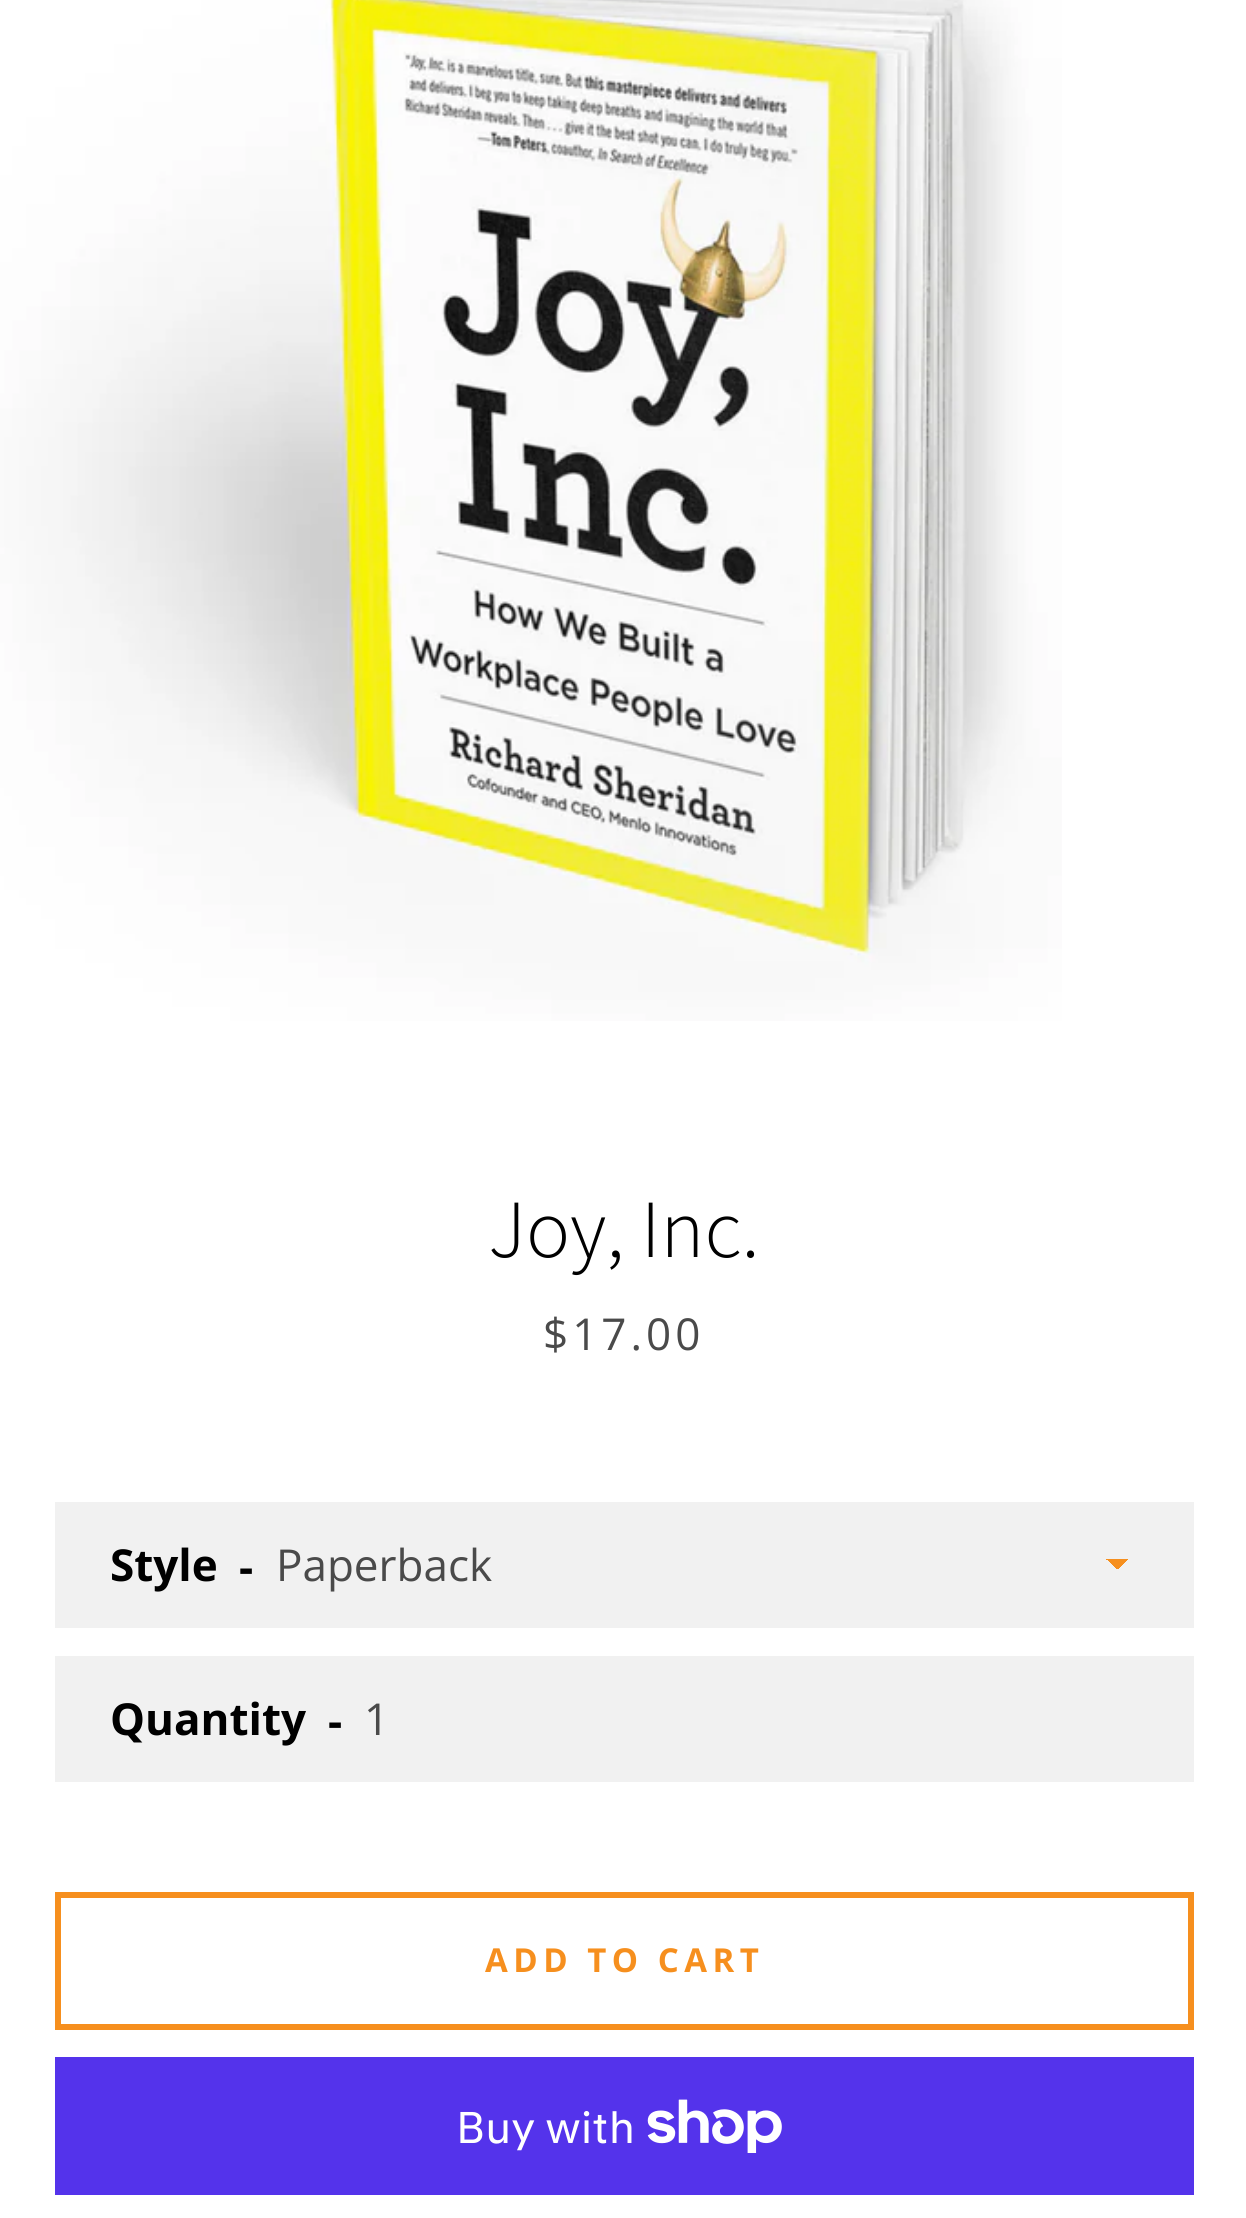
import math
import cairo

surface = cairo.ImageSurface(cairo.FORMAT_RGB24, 1246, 2218)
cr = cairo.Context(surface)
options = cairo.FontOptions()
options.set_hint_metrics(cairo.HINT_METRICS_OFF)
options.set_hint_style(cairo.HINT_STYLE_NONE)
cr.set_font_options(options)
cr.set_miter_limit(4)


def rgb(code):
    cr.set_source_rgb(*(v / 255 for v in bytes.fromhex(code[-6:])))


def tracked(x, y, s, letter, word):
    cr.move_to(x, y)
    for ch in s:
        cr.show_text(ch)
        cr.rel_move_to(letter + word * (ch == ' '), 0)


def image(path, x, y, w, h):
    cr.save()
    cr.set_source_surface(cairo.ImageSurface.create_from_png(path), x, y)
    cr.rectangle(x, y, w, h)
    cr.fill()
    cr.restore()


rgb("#ffffff")
cr.paint()
image("img/1.png", 0, 0, 1062, 1021)
rgb("#f1f1f1")
cr.rectangle(55, 1502, 1139, 126)
cr.fill()
gradient = cairo.LinearGradient(1117, 1559, 1128, 1570)
gradient.add_color_stop_rgba(0.5, 0.965, 0.561, 0.118, 1)
gradient.add_color_stop_rgba(0.5, 0.945, 0.945, 0.945, 1)
cr.set_source(gradient)
cr.rectangle(1117, 1559, 11, 10)
cr.fill()
gradient = cairo.LinearGradient(1106, 1570, 1117, 1559)
gradient.add_color_stop_rgba(0.5, 0.945, 0.945, 0.945, 1)
gradient.add_color_stop_rgba(0.5, 0.965, 0.561, 0.118, 1)
cr.set_source(gradient)
cr.rectangle(1106, 1559, 11, 10)
cr.fill()
rgb("#f1f1f1")
cr.rectangle(55, 1656, 1139, 126)
cr.fill()
cr.rectangle(58, 1895, 1133, 132)
rgb("#f68f1e")
cr.set_line_width(6)
cr.stroke()
rgb("#5433eb")
cr.rectangle(55, 2057, 1139, 138)
cr.fill()
image("img/2.png", 647, 2099, 135, 54)
cr.select_font_face("Source Sans Pro Light")
cr.set_font_size(82.5)
rgb("#000000")
cr.move_to(488, 1257)
cr.show_text("Joy, Inc.")
cr.select_font_face("Open Sans")
cr.set_font_size(44)
rgb("#4a4a4a")
tracked(543, 1350, "$17.00", 4, 0)
cr.select_font_face("Open Sans", cairo.FONT_SLANT_NORMAL, cairo.FONT_WEIGHT_BOLD)
rgb("#000000")
cr.move_to(110, 1581)
cr.show_text("Style")
cr.move_to(239, 1583)
cr.show_text("-")
cr.select_font_face("Open Sans")
rgb("#4a4a4a")
cr.move_to(276, 1581)
cr.show_text("Paperback")
cr.select_font_face("Open Sans", cairo.FONT_SLANT_NORMAL, cairo.FONT_WEIGHT_BOLD)
rgb("#000000")
cr.move_to(110, 1735)
cr.show_text("Quantity")
cr.move_to(328, 1737)
cr.show_text("-")
cr.select_font_face("Open Sans")
rgb("#4a4a4a")
cr.move_to(364, 1735)
cr.show_text("1")
cr.select_font_face("Open Sans", cairo.FONT_SLANT_NORMAL, cairo.FONT_WEIGHT_BOLD)
cr.set_font_size(33)
rgb("#f68f1e")
tracked(485, 1972, "ADD TO CART", 5.5, 0)
cr.select_font_face("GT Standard")
cr.set_font_size(44)
rgb("#ffffff")
cr.move_to(456, 2143)
cr.show_text("Buy with")
surface.write_to_png("page.png")
